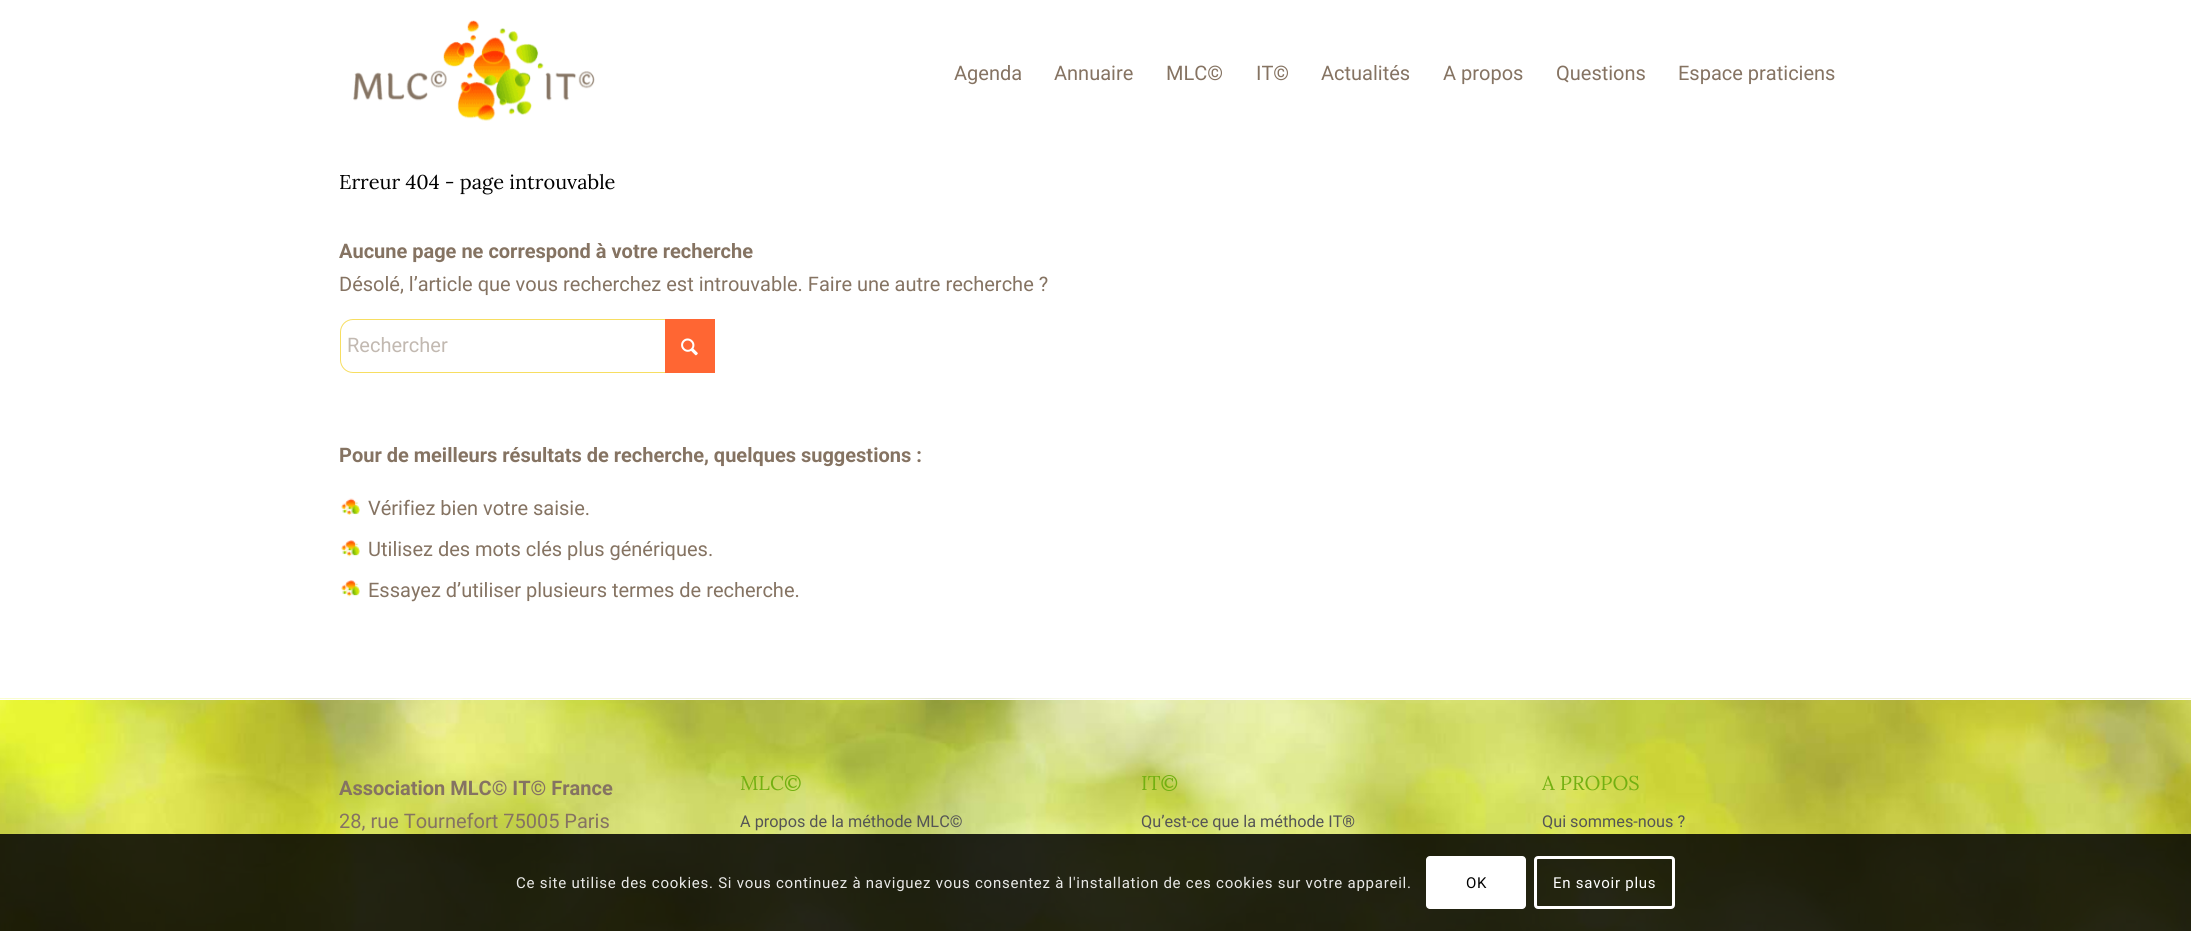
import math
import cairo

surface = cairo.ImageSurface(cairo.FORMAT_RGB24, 2191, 931)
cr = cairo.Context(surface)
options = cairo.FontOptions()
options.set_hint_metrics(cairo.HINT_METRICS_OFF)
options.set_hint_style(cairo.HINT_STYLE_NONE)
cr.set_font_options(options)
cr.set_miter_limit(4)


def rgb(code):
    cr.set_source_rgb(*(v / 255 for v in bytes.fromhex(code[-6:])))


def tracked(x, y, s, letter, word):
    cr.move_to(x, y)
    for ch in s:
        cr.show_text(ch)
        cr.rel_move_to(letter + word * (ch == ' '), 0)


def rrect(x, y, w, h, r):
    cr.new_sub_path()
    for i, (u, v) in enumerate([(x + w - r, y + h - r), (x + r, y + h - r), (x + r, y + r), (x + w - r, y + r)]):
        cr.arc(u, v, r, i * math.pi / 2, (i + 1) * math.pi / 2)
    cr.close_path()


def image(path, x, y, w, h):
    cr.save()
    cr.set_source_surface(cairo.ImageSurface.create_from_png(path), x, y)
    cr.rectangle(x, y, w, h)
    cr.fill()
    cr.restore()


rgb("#ffffff")
cr.paint()
image("img/1.png", 353, 20, 242, 101)
rrect(340.5, 319.5, 374, 53, 12.5)
rgb("#f7de62")
cr.set_line_width(1)
cr.stroke()
rgb("#ff6633")
cr.rectangle(665, 319, 50, 54)
cr.fill()
image("img/2.png", 681, 338, 17, 18)
image("img/3.png", 341, 498, 19, 17)
image("img/4.png", 341, 540, 19, 17)
image("img/5.png", 341, 580, 19, 17)
image("img/6.png", 0, 698, 2191, 233)
rgb("#ffffff")
cr.rectangle(0, 699, 2191, 1)
cr.fill()
cr.set_source_rgba(0, 0, 0, 0.85)
cr.rectangle(0, 834, 2191, 97)
cr.fill()
rgb("#ffffff")
rrect(1426, 856, 100, 53, 4)
cr.fill()
rrect(1535.5, 857.5, 138, 50, 2.5)
cr.set_line_width(3)
cr.stroke()
cr.select_font_face("Roboto")
cr.set_font_size(20)
rgb("#857362")
for x, y, s in [
    (954, 80, "Agenda"),
    (1054, 80, "Annuaire"),
    (1166, 80, "MLC©"),
    (1256, 80, "IT©"),
    (1321, 80, "Actualités"),
    (1443, 80, "A propos"),
    (1556, 80, "Questions"),
    (1678, 80, "Espace praticiens"),
]:
    cr.move_to(x, y)
    cr.show_text(s)
cr.select_font_face("Lora")
rgb("#000000")
cr.move_to(339, 189)
cr.show_text("Erreur 404 - page introuvable")
cr.select_font_face("Roboto", cairo.FONT_SLANT_NORMAL, cairo.FONT_WEIGHT_BOLD)
rgb("#857362")
cr.move_to(339, 258)
cr.show_text("Aucune page ne correspond à votre recherche")
cr.select_font_face("Roboto")
cr.move_to(339, 291)
cr.show_text("Désolé, l’article que vous recherchez est introuvable. Faire une autre recherche ?")
rgb("#c2b9b1")
cr.move_to(347, 352)
cr.show_text("Rechercher")
cr.select_font_face("Roboto", cairo.FONT_SLANT_NORMAL, cairo.FONT_WEIGHT_BOLD)
rgb("#857362")
cr.move_to(339, 462)
cr.show_text("Pour de meilleurs résultats de recherche, quelques suggestions :")
cr.select_font_face("Roboto")
for x, y, s in [
    (368, 515, "Vérifiez bien votre saisie."),
    (368, 556, "Utilisez des mots clés plus génériques."),
    (368, 597, "Essayez d’utiliser plusieurs termes de recherche."),
]:
    cr.move_to(x, y)
    cr.show_text(s)
cr.select_font_face("Roboto", cairo.FONT_SLANT_NORMAL, cairo.FONT_WEIGHT_BOLD)
cr.move_to(339, 795)
cr.show_text("Association MLC© IT© France")
cr.select_font_face("Roboto")
cr.move_to(339, 828)
cr.show_text("28, rue Tournefort 75005 Paris")
cr.select_font_face("Lora")
rgb("#73b011")
cr.move_to(740, 790)
cr.show_text("MLC©")
cr.select_font_face("Roboto")
cr.set_font_size(16.25)
rgb("#555555")
cr.move_to(740, 827)
cr.show_text("A propos de la méthode MLC©")
cr.select_font_face("Lora")
cr.set_font_size(20)
rgb("#73b011")
cr.move_to(1141, 790)
cr.show_text("IT©")
cr.select_font_face("Roboto")
cr.set_font_size(16.25)
rgb("#555555")
cr.move_to(1141, 827)
cr.show_text("Qu’est-ce que la méthode IT®")
cr.select_font_face("Lora")
cr.set_font_size(20)
rgb("#73b011")
cr.move_to(1542, 790)
cr.show_text("A PROPOS")
cr.select_font_face("Roboto")
cr.set_font_size(16.25)
rgb("#555555")
cr.move_to(1542, 827)
cr.show_text("Qui sommes-nous ?")
cr.set_font_size(15)
rgb("#e9e9e7")
tracked(516, 888, "Ce site utilise des cookies. Si vous continuez à naviguez vous consentez à l'installation de ces cookies sur votre appareil.", 0.75, 0)
rgb("#000000")
tracked(1466, 888, "OK", 0.75, 0)
rgb("#ffffff")
tracked(1553, 888, "En savoir plus", 0.75, 0)
surface.write_to_png("page.png")
